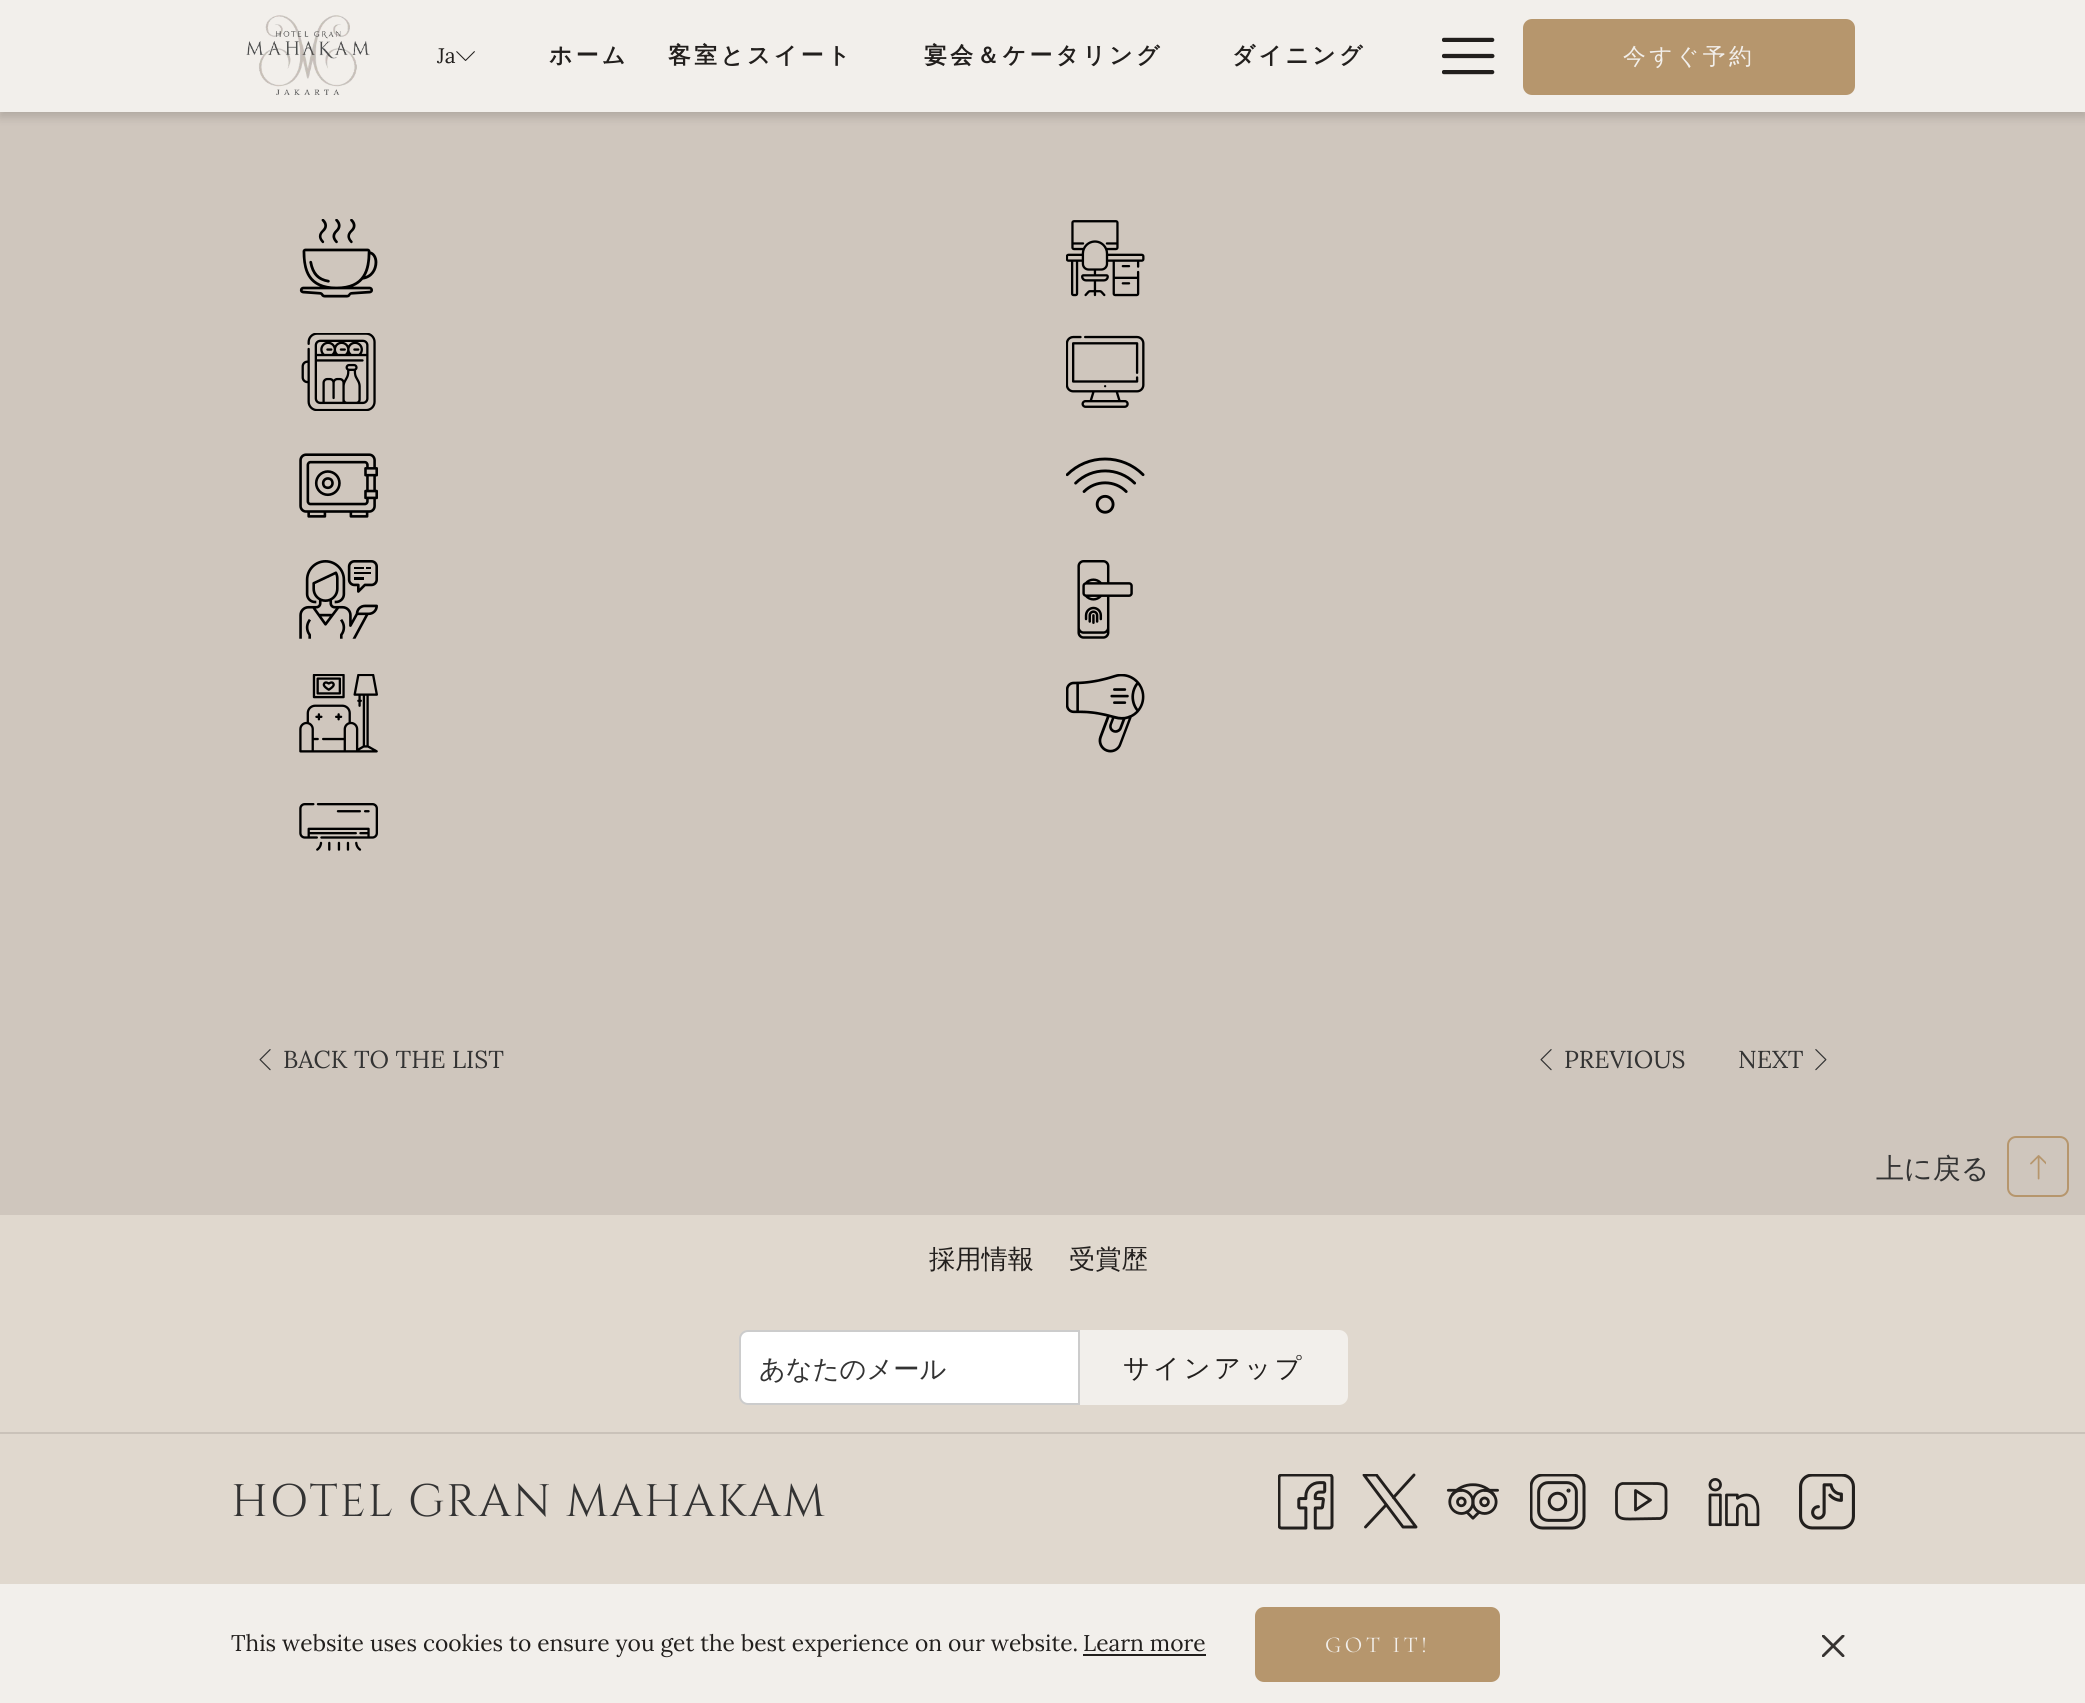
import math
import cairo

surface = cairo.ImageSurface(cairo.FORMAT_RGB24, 2085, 1703)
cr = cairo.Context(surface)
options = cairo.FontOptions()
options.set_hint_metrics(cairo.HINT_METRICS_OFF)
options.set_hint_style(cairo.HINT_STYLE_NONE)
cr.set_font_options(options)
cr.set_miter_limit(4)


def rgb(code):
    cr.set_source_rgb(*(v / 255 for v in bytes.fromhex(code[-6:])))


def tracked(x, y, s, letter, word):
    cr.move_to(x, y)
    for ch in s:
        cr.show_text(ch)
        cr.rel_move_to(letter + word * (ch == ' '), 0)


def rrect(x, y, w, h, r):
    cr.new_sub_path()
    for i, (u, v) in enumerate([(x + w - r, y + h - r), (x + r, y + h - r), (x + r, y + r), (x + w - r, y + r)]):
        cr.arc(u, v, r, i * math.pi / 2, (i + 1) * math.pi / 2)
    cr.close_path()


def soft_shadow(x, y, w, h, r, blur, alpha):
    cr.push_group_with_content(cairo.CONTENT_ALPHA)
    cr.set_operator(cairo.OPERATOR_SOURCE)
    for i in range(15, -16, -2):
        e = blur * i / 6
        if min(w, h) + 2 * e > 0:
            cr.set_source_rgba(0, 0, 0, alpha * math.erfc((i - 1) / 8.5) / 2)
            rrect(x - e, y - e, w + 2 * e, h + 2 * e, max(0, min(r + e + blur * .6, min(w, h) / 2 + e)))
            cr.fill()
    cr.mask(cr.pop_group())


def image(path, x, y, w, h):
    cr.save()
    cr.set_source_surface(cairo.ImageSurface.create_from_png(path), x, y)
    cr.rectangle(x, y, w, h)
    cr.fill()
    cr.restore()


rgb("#cfc6bd")
cr.paint()
rgb("#000000")
soft_shadow(0, 5, 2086, 112, 0, 5, 0.15)
rgb("#f2efeb")
cr.rectangle(0, 0, 2085, 112)
cr.fill()
image("img/1.png", 246, 15, 124, 80)
image("img/2.png", 456, 51, 19, 10)
image("img/3.png", 1442, 37, 53, 38)
rgb("#b6966d")
rrect(1523, 19, 332, 76, 9)
cr.fill()
image("img/4.png", 299, 219, 79, 79)
image("img/5.png", 1066, 220, 79, 77)
image("img/6.png", 301, 333, 75, 78)
image("img/7.png", 1066, 335, 79, 73)
image("img/8.png", 299, 453, 79, 65)
image("img/9.png", 1066, 457, 79, 57)
image("img/10.png", 299, 560, 79, 79)
image("img/11.png", 1077, 560, 56, 79)
image("img/12.png", 299, 674, 79, 79)
image("img/13.png", 1066, 674, 79, 79)
image("img/14.png", 299, 803, 79, 48)
image("img/15.png", 259, 1049, 12, 22)
image("img/15.png", 1540, 1049, 12, 22)
image("img/16.png", 1815, 1049, 12, 22)
rrect(2008, 1137, 60, 59, 8)
cr.stroke()
image("img/17.png", 2030, 1155, 16, 25)
rgb("#e0d8ce")
cr.rectangle(0, 1215, 2085, 369)
cr.fill()
rgb("#ffffff")
cr.new_path()
cr.move_to(748, 1331)
cr.line_to(1079, 1331)
cr.line_to(1079, 1404)
cr.line_to(748, 1404)
cr.curve_to(743.5, 1404, 740, 1400.5, 740, 1396)
cr.line_to(740, 1339)
cr.curve_to(740, 1334.5, 743.5, 1331, 748, 1331)
cr.close_path()
cr.fill_preserve()
rgb("#cccccc")
cr.stroke()
rgb("#f2efeb")
cr.new_path()
cr.move_to(1080, 1330)
cr.line_to(1339, 1330)
cr.curve_to(1344, 1330, 1348, 1334, 1348, 1339)
cr.line_to(1348, 1396)
cr.curve_to(1348, 1401, 1344, 1405, 1339, 1405)
cr.line_to(1080, 1405)
cr.close_path()
cr.fill()
rgb("#cac2b9")
cr.rectangle(0, 1432, 2085, 2)
cr.fill()
image("img/18.png", 1278, 1474, 56, 56)
cr.save()
cr.rectangle(1362, 1474, 56, 56)
cr.clip()
cr.new_path()
cr.move_to(1403, 1527)
cr.line_to(1364, 1475)
cr.line_to(1376.5, 1475)
cr.line_to(1416, 1527)
cr.close_path()
rgb("#221f1d")
cr.set_line_width(2.9)
cr.set_line_cap(cairo.LINE_CAP_ROUND)
cr.set_line_join(cairo.LINE_JOIN_ROUND)
cr.stroke()
cr.restore()
cr.new_path()
cr.move_to(1414, 1475)
cr.line_to(1393.5, 1497.5)
cr.move_to(1365.5, 1527)
cr.line_to(1386, 1505)
rgb("#221f1d")
cr.set_line_width(2.9)
cr.set_line_cap(cairo.LINE_CAP_ROUND)
cr.set_line_join(cairo.LINE_JOIN_ROUND)
cr.stroke()
image("img/19.png", 1446, 1483, 53, 37)
image("img/20.png", 1530, 1474, 56, 56)
cr.new_path()
cr.move_to(1666, 1491)
cr.curve_to(1666, 1483, 1658.5, 1483.5, 1653, 1483.5)
cr.line_to(1622.5, 1483.5)
cr.curve_to(1615.5, 1485, 1616.5, 1492, 1616.5, 1497.5)
cr.line_to(1616.5, 1511)
cr.curve_to(1616.5, 1519, 1624, 1519, 1629.5, 1519)
cr.line_to(1660, 1518.5)
cr.curve_to(1667, 1517, 1666, 1510, 1666, 1504.5)
cr.close_path()
cr.move_to(1635.5, 1510)
cr.line_to(1635.5, 1490.5)
cr.line_to(1650.5, 1500)
cr.close_path()
cr.set_line_width(2.8)
cr.stroke()
image("img/21.png", 1708, 1478, 52, 49)
image("img/22.png", 1799, 1474, 56, 56)
rgb("#f2efeb")
cr.rectangle(0, 1584, 2085, 119)
cr.fill()
rgb("#221f1d")
cr.rectangle(1083, 1654, 123, 2)
cr.fill()
rgb("#b6966d")
rrect(1255, 1607, 245, 75, 9)
cr.fill()
image("img/23.png", 1822, 1635, 23, 22)
cr.select_font_face("Lora")
cr.set_font_size(21)
rgb("#221f1d")
cr.move_to(437, 63)
cr.show_text("Ja")
cr.select_font_face("WenQuanYi Zen Hei", cairo.FONT_SLANT_NORMAL, cairo.FONT_WEIGHT_BOLD)
cr.set_font_size(22.75)
for x, y, s in [
    (549, 63, "ホーム"),
    (668, 63, "客室とスイート"),
    (924, 63, "宴会＆ケータリング"),
    (1232, 63, "ダイニング"),
]:
    tracked(x, y, s, 3.5, 0)
cr.select_font_face("WenQuanYi Zen Hei Medium")
rgb("#f2efeb")
tracked(1623, 64, "今すぐ予約", 3.5, 0)
cr.select_font_face("Lora")
cr.set_font_size(24.5)
rgb("#333333")
for x, y, s in [
    (283, 1068, "BACK TO THE LIST"),
    (1564, 1068, "PREVIOUS"),
    (1738, 1068, "NEXT"),
]:
    cr.move_to(x, y)
    cr.show_text(s)
cr.select_font_face("WenQuanYi Zen Hei Medium")
cr.set_font_size(28)
cr.move_to(1876, 1178)
cr.show_text("上に戻る")
cr.set_font_size(26.25)
rgb("#221f1d")
cr.move_to(929, 1268)
cr.show_text("採用情報")
cr.move_to(1069, 1268)
cr.show_text("受賞歴")
rgb("#333333")
cr.move_to(759, 1378)
cr.show_text("あなたのメール")
rgb("#221f1d")
tracked(1123, 1377, "サインアップ", 3.5, 0)
cr.select_font_face("Cinzel")
cr.set_font_size(45.5)
rgb("#333333")
tracked(231, 1516, "HOTEL GRAN MAHAKAM", 1.75, 0)
cr.select_font_face("Lora")
cr.set_font_size(22.75)
rgb("#221f1d")
cr.move_to(231, 1651)
cr.show_text("This website uses cookies to ensure you get the best experience on our website.")
cr.move_to(1083, 1651)
cr.show_text("Learn more")
cr.select_font_face("Cormorant Garamond")
rgb("#f2efeb")
tracked(1325, 1652, "GOT IT!", 3.5, 0)
surface.write_to_png("page.png")
